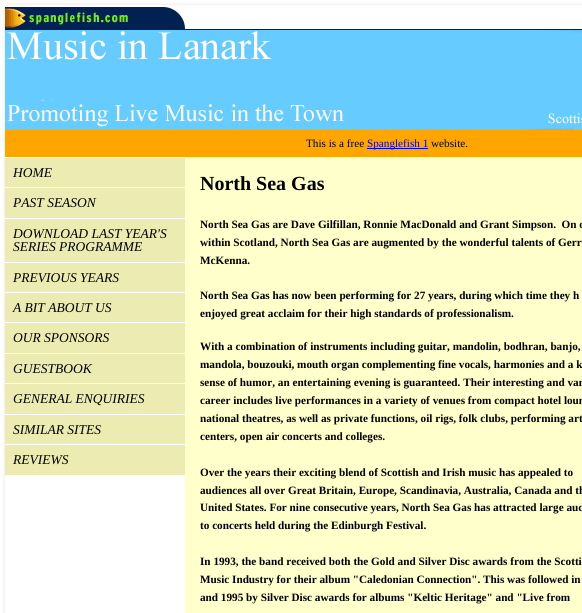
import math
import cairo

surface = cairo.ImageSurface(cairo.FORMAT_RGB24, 582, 613)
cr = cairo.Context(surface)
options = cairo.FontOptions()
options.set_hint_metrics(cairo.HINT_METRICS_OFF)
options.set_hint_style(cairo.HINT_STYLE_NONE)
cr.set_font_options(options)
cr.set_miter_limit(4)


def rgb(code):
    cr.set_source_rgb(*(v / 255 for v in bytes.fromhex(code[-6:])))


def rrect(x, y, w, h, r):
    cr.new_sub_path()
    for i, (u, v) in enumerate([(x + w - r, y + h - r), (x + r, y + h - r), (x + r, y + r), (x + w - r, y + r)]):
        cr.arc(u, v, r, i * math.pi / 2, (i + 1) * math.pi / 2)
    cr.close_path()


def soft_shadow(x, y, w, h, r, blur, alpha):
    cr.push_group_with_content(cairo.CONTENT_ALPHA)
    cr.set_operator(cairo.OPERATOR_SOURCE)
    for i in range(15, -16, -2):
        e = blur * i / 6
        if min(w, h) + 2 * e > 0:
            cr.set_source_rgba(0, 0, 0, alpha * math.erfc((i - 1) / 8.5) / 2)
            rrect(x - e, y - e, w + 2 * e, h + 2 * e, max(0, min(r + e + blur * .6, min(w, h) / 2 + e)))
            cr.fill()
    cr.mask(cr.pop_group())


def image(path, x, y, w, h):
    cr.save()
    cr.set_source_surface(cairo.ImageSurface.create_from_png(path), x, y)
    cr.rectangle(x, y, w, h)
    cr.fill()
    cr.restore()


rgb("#ffffff")
cr.paint()
cr.save()
cr.set_fill_rule(cairo.FILL_RULE_EVEN_ODD)
cr.new_path()
cr.move_to(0, 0)
cr.line_to(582, 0)
cr.line_to(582, 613)
cr.line_to(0, 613)
cr.close_path()
cr.move_to(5, 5)
cr.line_to(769, 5)
cr.line_to(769, 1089)
cr.line_to(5, 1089)
cr.close_path()
cr.clip()
rgb("#666666")
soft_shadow(8, 8, 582, 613, 0, 2.5, 1)
cr.restore()
image("img/1.png", 5, 7, 577, 23)
image("img/2.png", 5, 30, 577, 100)
for x, y, w, h, color in [
    (5, 130, 577, 27, "#ffa500"),
    (367, 148, 61, 1, "#0000ee"),
    (5, 158, 180, 29, "#ecebb1"),
    (5, 188, 180, 30, "#ecebb1"),
    (5, 219, 180, 43, "#ecebb1"),
    (5, 263, 180, 29, "#ecebb1"),
    (5, 293, 180, 29, "#ecebb1"),
    (5, 323, 180, 30, "#ecebb1"),
    (5, 354, 180, 29, "#ecebb1"),
    (5, 384, 180, 30, "#ecebb1"),
    (5, 415, 180, 29, "#ecebb1"),
    (5, 445, 180, 30, "#ecebb1"),
    (185, 157, 397, 456, "#ffffcc"),
]:
    rgb(color)
    cr.rectangle(x, y, w, h)
    cr.fill()
cr.select_font_face("Liberation Serif")
cr.set_font_size(11.2)
rgb("#000000")
cr.move_to(306, 147)
cr.show_text("This is a free")
rgb("#0000ee")
cr.move_to(367, 147)
cr.show_text("Spanglefish 1")
rgb("#000000")
cr.move_to(431, 147)
cr.show_text("website.")
cr.select_font_face("Liberation Serif", cairo.FONT_SLANT_ITALIC)
cr.set_font_size(13.5)
for x, y, s in [
    (13, 177, "HOME"),
    (13, 207, "PAST SEASON"),
    (13, 238, "DOWNLOAD LAST YEAR'S"),
    (13, 251, "SERIES PROGRAMME"),
    (13, 282, "PREVIOUS YEARS"),
    (13, 312, "A BIT ABOUT US"),
    (13, 342, "OUR SPONSORS"),
    (13, 373, "GUESTBOOK"),
    (13, 403, "GENERAL ENQUIRIES"),
    (13, 434, "SIMILAR SITES"),
    (13, 464, "REVIEWS"),
]:
    cr.move_to(x, y)
    cr.show_text(s)
cr.select_font_face("Liberation Serif", cairo.FONT_SLANT_NORMAL, cairo.FONT_WEIGHT_BOLD)
cr.set_font_size(20)
cr.move_to(200, 190)
cr.show_text("North Sea Gas")
cr.set_font_size(11.2)
for x, y, s in [
    (200, 228, "North Sea Gas are Dave Gilfillan, Ronnie MacDonald and Grant Simpson.  On o"),
    (200, 246, "within Scotland, North Sea Gas are augmented by the wonderful talents of Gerr"),
    (200, 264, "McKenna."),
    (200, 299, "North Sea Gas has now been performing for 27 years, during which time they h"),
    (200, 317, "enjoyed great acclaim for their high standards of professionalism."),
    (200, 350, "With a combination of instruments including guitar, mandolin, bodhran, banjo,"),
    (200, 368, "mandola, bouzouki, mouth organ complementing fine vocals, harmonies and a k"),
    (200, 386, "sense of humor, an entertaining evening is guaranteed. Their interesting and var"),
    (200, 404, "career includes live performances in a variety of venues from compact hotel loun"),
    (200, 422, "national theatres, as well as private functions, oil rigs, folk clubs, performing art"),
    (200, 440, "centers, open air concerts and colleges."),
    (200, 476, "Over the years their exciting blend of Scottish and Irish music has appealed to"),
    (200, 494, "audiences all over Great Britain, Europe, Scandinavia, Australia, Canada and th"),
    (200, 511, "United States. For nine consecutive years, North Sea Gas has attracted large aud"),
    (200, 529, "to concerts held during the Edinburgh Festival."),
    (200, 565, "In 1993, the band received both the Gold and Silver Disc awards from the Scotti"),
    (200, 583, "Music Industry for their album \"Caledonian Connection\". This was followed in"),
    (200, 601, "and 1995 by Silver Disc awards for albums \"Keltic Heritage\" and \"Live from"),
]:
    cr.move_to(x, y)
    cr.show_text(s)
surface.write_to_png("page.png")
